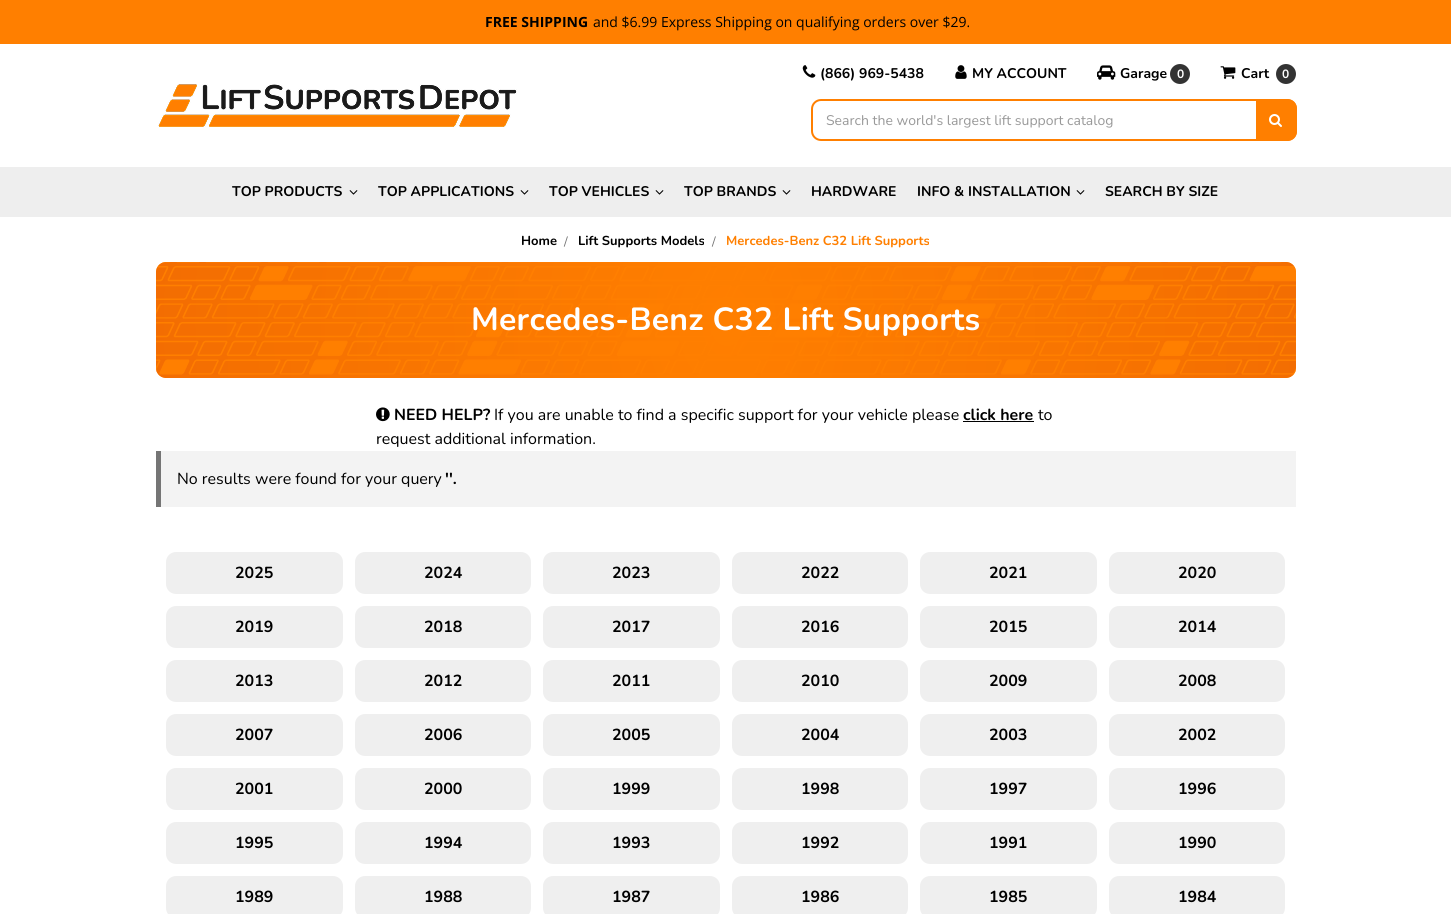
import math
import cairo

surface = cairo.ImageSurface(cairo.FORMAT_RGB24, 1451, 914)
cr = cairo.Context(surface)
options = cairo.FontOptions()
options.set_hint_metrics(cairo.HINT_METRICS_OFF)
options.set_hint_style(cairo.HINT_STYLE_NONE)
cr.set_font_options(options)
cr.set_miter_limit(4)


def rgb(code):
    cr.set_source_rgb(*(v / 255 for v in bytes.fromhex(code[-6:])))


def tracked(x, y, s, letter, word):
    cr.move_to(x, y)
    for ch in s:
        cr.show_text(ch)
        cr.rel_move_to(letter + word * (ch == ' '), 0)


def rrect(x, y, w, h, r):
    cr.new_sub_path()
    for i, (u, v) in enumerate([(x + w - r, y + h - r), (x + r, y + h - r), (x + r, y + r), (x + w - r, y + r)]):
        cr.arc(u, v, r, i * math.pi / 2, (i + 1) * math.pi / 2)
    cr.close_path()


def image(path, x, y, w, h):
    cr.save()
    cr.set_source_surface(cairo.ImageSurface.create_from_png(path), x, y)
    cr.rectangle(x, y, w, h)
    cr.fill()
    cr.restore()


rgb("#ffffff")
cr.paint()
rgb("#ff7f00")
cr.rectangle(0, 0, 1451, 44)
cr.fill()
image("img/1.png", 158, 84, 359, 43)
image("img/2.png", 802, 65, 14, 13)
image("img/3.png", 955, 65, 12, 14)
image("img/4.png", 1097, 65, 19, 15)
rgb("#333333")
cr.arc(1180, 74, 10, 0, 2 * math.pi)
cr.fill()
image("img/5.png", 1220, 66, 16, 13)
cr.arc(1286, 74, 10, 0, 2 * math.pi)
cr.fill()
rrect(812, 100, 482, 40, 9)
rgb("#ff7f00")
cr.stroke()
cr.new_path()
cr.move_to(1256, 99)
cr.line_to(1287, 99)
cr.curve_to(1292.5, 99, 1297, 103.5, 1297, 109)
cr.line_to(1297, 131)
cr.curve_to(1297, 136.5, 1292.5, 141, 1287, 141)
cr.line_to(1256, 141)
cr.close_path()
cr.fill()
cr.set_fill_rule(cairo.FILL_RULE_EVEN_ODD)
cr.new_path()
cr.move_to(1256, 99)
cr.line_to(1287, 99)
cr.curve_to(1293, 99, 1297, 103, 1297, 109)
cr.line_to(1297, 131)
cr.curve_to(1297, 137, 1293, 141, 1287, 141)
cr.line_to(1256, 141)
cr.close_path()
cr.move_to(1256, 101)
cr.line_to(1287, 101)
cr.curve_to(1291, 101, 1295, 105, 1295, 109)
cr.line_to(1295, 131)
cr.curve_to(1295, 135, 1291, 139, 1287, 139)
cr.line_to(1256, 139)
cr.close_path()
cr.fill()
image("img/6.png", 1269, 114, 13, 13)
rgb("#eeeeee")
cr.rectangle(0, 167, 1451, 50)
cr.fill()
image("img/7.png", 349, 190, 9, 5)
image("img/7.png", 520, 190, 9, 5)
image("img/7.png", 655, 190, 9, 5)
image("img/7.png", 782, 190, 9, 5)
image("img/7.png", 1076, 190, 9, 5)
rgb("#ff7f00")
rrect(156, 262, 1140, 116, 10)
cr.fill()
image("img/8.png", 156, 262, 1140, 116)
image("img/9.png", 376, 407, 14, 15)
for x, y, w, h, color in [
    (963, 421, 71, 1, "#000000"),
    (161, 451, 1135, 56, "#f3f3f3"),
    (156, 451, 5, 56, "#757575"),
]:
    rgb(color)
    cr.rectangle(x, y, w, h)
    cr.fill()
rgb("#efefef")
rrect(166, 552, 177, 42, 10)
cr.fill()
rrect(355, 552, 176, 42, 10)
cr.fill()
rrect(543, 552, 177, 42, 10)
cr.fill()
rrect(732, 552, 176, 42, 10)
cr.fill()
rrect(920, 552, 177, 42, 10)
cr.fill()
rrect(1109, 552, 176, 42, 10)
cr.fill()
rrect(166, 606, 177, 42, 10)
cr.fill()
rrect(355, 606, 176, 42, 10)
cr.fill()
rrect(543, 606, 177, 42, 10)
cr.fill()
rrect(732, 606, 176, 42, 10)
cr.fill()
rrect(920, 606, 177, 42, 10)
cr.fill()
rrect(1109, 606, 176, 42, 10)
cr.fill()
rrect(166, 660, 177, 42, 10)
cr.fill()
rrect(355, 660, 176, 42, 10)
cr.fill()
rrect(543, 660, 177, 42, 10)
cr.fill()
rrect(732, 660, 176, 42, 10)
cr.fill()
rrect(920, 660, 177, 42, 10)
cr.fill()
rrect(1109, 660, 176, 42, 10)
cr.fill()
rrect(166, 714, 177, 42, 10)
cr.fill()
rrect(355, 714, 176, 42, 10)
cr.fill()
rrect(543, 714, 177, 42, 10)
cr.fill()
rrect(732, 714, 176, 42, 10)
cr.fill()
rrect(920, 714, 177, 42, 10)
cr.fill()
rrect(1109, 714, 176, 42, 10)
cr.fill()
rrect(166, 768, 177, 42, 10)
cr.fill()
rrect(355, 768, 176, 42, 10)
cr.fill()
rrect(543, 768, 177, 42, 10)
cr.fill()
rrect(732, 768, 176, 42, 10)
cr.fill()
rrect(920, 768, 177, 42, 10)
cr.fill()
rrect(1109, 768, 176, 42, 10)
cr.fill()
rrect(166, 822, 177, 42, 10)
cr.fill()
rrect(355, 822, 176, 42, 10)
cr.fill()
rrect(543, 822, 177, 42, 10)
cr.fill()
rrect(732, 822, 176, 42, 10)
cr.fill()
rrect(920, 822, 177, 42, 10)
cr.fill()
rrect(1109, 822, 176, 42, 10)
cr.fill()
rrect(166, 876, 177, 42, 10)
cr.fill()
rrect(355, 876, 176, 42, 10)
cr.fill()
rrect(543, 876, 177, 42, 10)
cr.fill()
rrect(732, 876, 176, 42, 10)
cr.fill()
rrect(920, 876, 177, 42, 10)
cr.fill()
rrect(1109, 876, 176, 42, 10)
cr.fill()
cr.select_font_face("Open Sans", cairo.FONT_SLANT_NORMAL, cairo.FONT_WEIGHT_BOLD)
cr.set_font_size(14)
rgb("#000000")
cr.move_to(485, 27)
cr.show_text("FREE SHIPPING")
cr.select_font_face("Open Sans")
cr.move_to(593, 27)
cr.show_text("and $6.99 Express Shipping on qualifying orders over $29.")
cr.select_font_face("Nunito ExtraLight")
for x, y, s in [
    (820, 78, "(866) 969-5438"),
    (972, 78, "MY ACCOUNT"),
    (1120, 78, "Garage"),
]:
    cr.move_to(x, y)
    cr.show_text(s)
cr.set_font_size(12)
rgb("#ffffff")
cr.move_to(1177, 78)
cr.show_text("0")
cr.set_font_size(14)
rgb("#000000")
cr.move_to(1241, 78)
cr.show_text("Cart")
cr.set_font_size(12)
rgb("#ffffff")
cr.move_to(1282, 78)
cr.show_text("0")
cr.select_font_face("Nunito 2 ExtraLight")
cr.set_font_size(14)
rgb("#999999")
cr.move_to(826, 125)
cr.show_text("Search the world's largest lift support catalog")
cr.select_font_face("Nunito ExtraLight")
rgb("#000000")
for x, y, s in [
    (232, 196, "TOP PRODUCTS"),
    (378, 196, "TOP APPLICATIONS"),
    (549, 196, "TOP VEHICLES"),
    (684, 196, "TOP BRANDS"),
    (811, 196, "HARDWARE"),
    (917, 196, "INFO & INSTALLATION"),
    (1105, 196, "SEARCH BY SIZE"),
]:
    cr.move_to(x, y)
    cr.show_text(s)
cr.set_font_size(13)
cr.move_to(521, 245)
cr.show_text("Home")
cr.select_font_face("Nunito 2 ExtraLight")
rgb("#757575")
cr.move_to(564, 246)
cr.show_text("/")
cr.select_font_face("Nunito ExtraLight")
rgb("#000000")
cr.move_to(578, 245)
cr.show_text("Lift Supports Models")
cr.select_font_face("Nunito 2 ExtraLight")
rgb("#757575")
cr.move_to(712, 246)
cr.show_text("/")
cr.select_font_face("Nunito ExtraLight")
rgb("#ff7f00")
cr.move_to(726, 245)
cr.show_text("Mercedes-Benz C32 Lift Supports")
cr.set_font_size(32)
rgb("#ffffff")
tracked(471, 330, "Mercedes-Benz C32 Lift Supports", 0.25, 0)
cr.set_font_size(16)
rgb("#000000")
cr.move_to(394, 420)
cr.show_text("NEED HELP?")
cr.select_font_face("Nunito 2 ExtraLight")
cr.move_to(494, 420)
cr.show_text("If you are unable to find a specific support for your vehicle please")
cr.select_font_face("Nunito ExtraLight")
cr.move_to(963, 420)
cr.show_text("click here")
cr.select_font_face("Nunito 2 ExtraLight")
for x, y, s in [
    (1038, 420, "to"),
    (376, 444, "request additional information."),
    (177, 484, "No results were found for your query"),
]:
    cr.move_to(x, y)
    cr.show_text(s)
cr.select_font_face("Nunito ExtraLight")
for x, y, s in [
    (445, 484, "''."),
    (235, 578, "2025"),
    (424, 578, "2024"),
    (612, 578, "2023"),
    (801, 578, "2022"),
    (989, 578, "2021"),
    (1178, 578, "2020"),
    (235, 632, "2019"),
    (424, 632, "2018"),
    (612, 632, "2017"),
    (801, 632, "2016"),
    (989, 632, "2015"),
    (1178, 632, "2014"),
    (235, 686, "2013"),
    (424, 686, "2012"),
    (612, 686, "2011"),
    (801, 686, "2010"),
    (989, 686, "2009"),
    (1178, 686, "2008"),
    (235, 740, "2007"),
    (424, 740, "2006"),
    (612, 740, "2005"),
    (801, 740, "2004"),
    (989, 740, "2003"),
    (1178, 740, "2002"),
    (235, 794, "2001"),
    (424, 794, "2000"),
    (612, 794, "1999"),
    (801, 794, "1998"),
    (989, 794, "1997"),
    (1178, 794, "1996"),
    (235, 848, "1995"),
    (424, 848, "1994"),
    (612, 848, "1993"),
    (801, 848, "1992"),
    (989, 848, "1991"),
    (1178, 848, "1990"),
    (235, 902, "1989"),
    (424, 902, "1988"),
    (612, 902, "1987"),
    (801, 902, "1986"),
    (989, 902, "1985"),
    (1178, 902, "1984"),
]:
    cr.move_to(x, y)
    cr.show_text(s)
surface.write_to_png("page.png")
